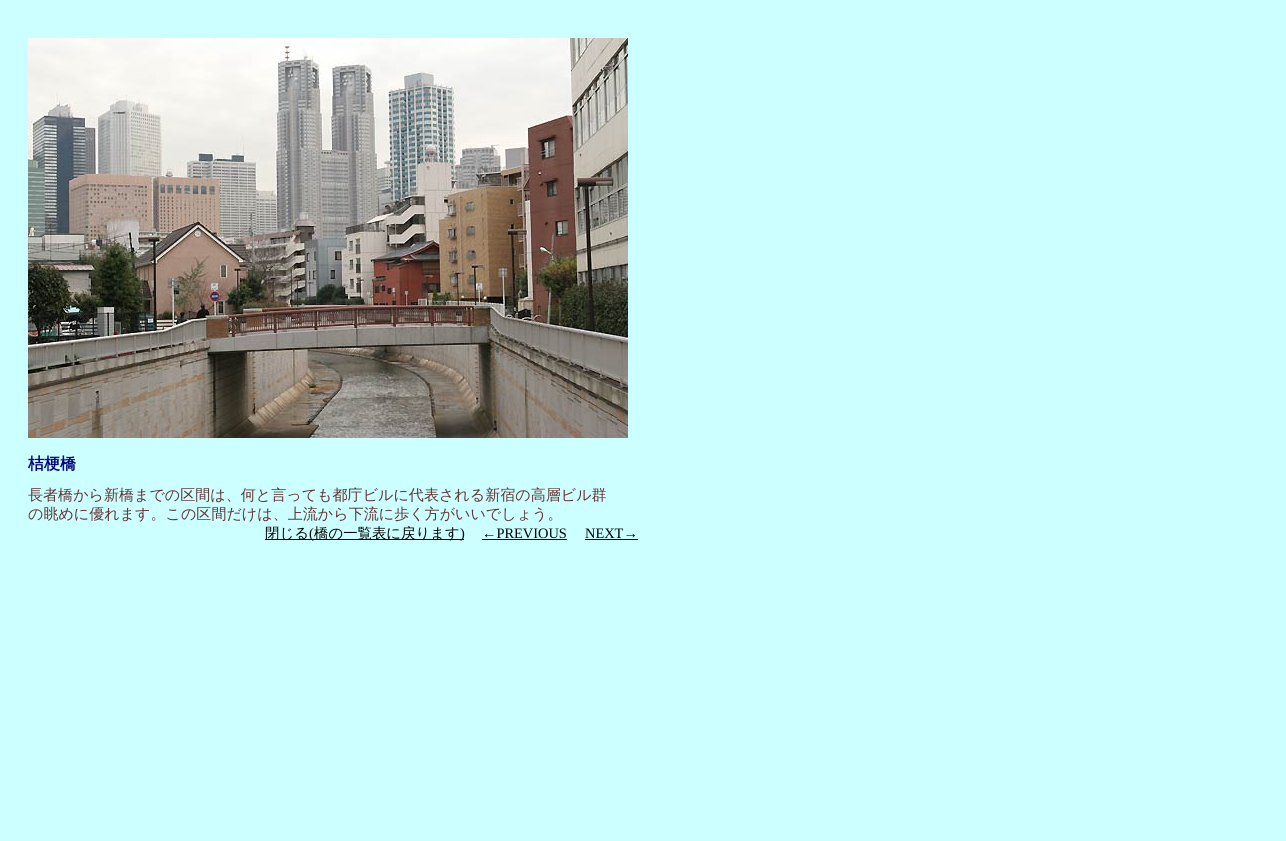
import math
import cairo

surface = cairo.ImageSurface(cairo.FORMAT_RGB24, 1286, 841)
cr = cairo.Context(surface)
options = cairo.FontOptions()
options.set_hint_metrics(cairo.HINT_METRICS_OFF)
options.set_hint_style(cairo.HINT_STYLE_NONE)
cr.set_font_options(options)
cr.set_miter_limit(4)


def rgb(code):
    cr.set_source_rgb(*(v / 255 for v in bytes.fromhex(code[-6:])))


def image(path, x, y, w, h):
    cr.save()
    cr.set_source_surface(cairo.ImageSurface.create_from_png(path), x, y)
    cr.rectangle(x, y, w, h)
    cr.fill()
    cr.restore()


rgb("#ccffff")
cr.paint()
image("img/1.png", 28, 38, 600, 400)
for x, y, w, h, color in [
    (265, 539, 199, 1, "#000000"),
    (482, 539, 85, 1, "#000000"),
    (585, 539, 53, 1, "#000000"),
]:
    rgb(color)
    cr.rectangle(x, y, w, h)
    cr.fill()
cr.select_font_face("WenQuanYi Zen Hei", cairo.FONT_SLANT_NORMAL, cairo.FONT_WEIGHT_BOLD)
cr.set_font_size(16)
rgb("#000080")
cr.move_to(28, 469)
cr.show_text("桔梗橋")
cr.select_font_face("WenQuanYi Zen Hei Medium")
cr.set_font_size(15.05)
rgb("#663333")
cr.move_to(28, 500)
cr.show_text("長者橋から新橋までの区間は、何と言っても都庁ビルに代表される新宿の高層ビル群")
cr.move_to(28, 519)
cr.show_text("の眺めに優れます。この区間だけは、上流から下流に歩く方がいいでしょう。")
cr.set_font_size(14.4)
rgb("#000000")
cr.move_to(265, 538)
cr.show_text("閉じる")
cr.select_font_face("Liberation Serif")
cr.move_to(309, 538)
cr.show_text("(")
cr.select_font_face("WenQuanYi Zen Hei Medium")
cr.move_to(314, 538)
cr.show_text("橋の一覧表に戻ります")
cr.select_font_face("Liberation Serif")
for x, y, s in [
    (460, 538, ")"),
    (482, 538, "←PREVIOUS"),
    (585, 538, "NEXT→"),
]:
    cr.move_to(x, y)
    cr.show_text(s)
surface.write_to_png("page.png")
